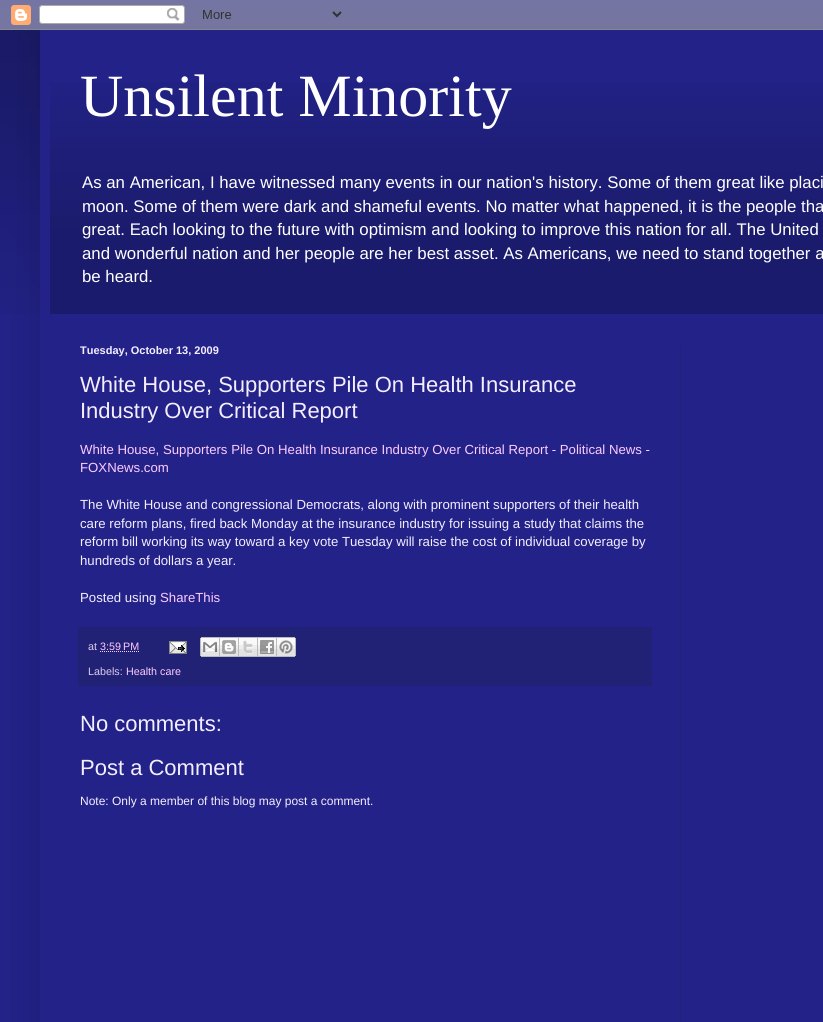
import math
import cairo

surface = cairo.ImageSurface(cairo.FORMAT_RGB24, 823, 1022)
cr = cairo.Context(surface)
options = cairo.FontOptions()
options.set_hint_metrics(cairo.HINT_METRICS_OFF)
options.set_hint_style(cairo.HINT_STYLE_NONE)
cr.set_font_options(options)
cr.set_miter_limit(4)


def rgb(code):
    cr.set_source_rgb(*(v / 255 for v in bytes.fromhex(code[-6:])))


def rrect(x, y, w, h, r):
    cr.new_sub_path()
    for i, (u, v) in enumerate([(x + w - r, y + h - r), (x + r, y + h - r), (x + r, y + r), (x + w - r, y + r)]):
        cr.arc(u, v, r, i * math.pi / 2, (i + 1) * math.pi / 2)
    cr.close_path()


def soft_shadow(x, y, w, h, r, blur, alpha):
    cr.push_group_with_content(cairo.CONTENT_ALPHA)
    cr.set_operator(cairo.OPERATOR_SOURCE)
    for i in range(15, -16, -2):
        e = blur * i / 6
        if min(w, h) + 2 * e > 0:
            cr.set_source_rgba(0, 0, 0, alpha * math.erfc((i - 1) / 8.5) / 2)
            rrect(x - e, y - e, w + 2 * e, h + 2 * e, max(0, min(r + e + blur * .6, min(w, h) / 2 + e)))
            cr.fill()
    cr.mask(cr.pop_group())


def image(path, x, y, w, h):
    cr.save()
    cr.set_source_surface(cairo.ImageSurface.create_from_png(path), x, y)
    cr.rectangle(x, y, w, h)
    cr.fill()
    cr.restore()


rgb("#222288")
cr.paint()
image("img/1.png", 0, 0, 823, 314)
rgb("#000000")
soft_shadow(40, 30, 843, 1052, 0, 20, 0.15)
image("img/2.png", 0, 0, 823, 30)
rgb("#222288")
cr.rectangle(40, 30, 783, 992)
cr.fill()
image("img/3.png", 50, 82, 773, 232)
rgb("#212176")
cr.rectangle(78, 627, 574, 59)
cr.fill()
cr.new_path()
cr.move_to(100, 651.5)
cr.line_to(139.5, 651.5)
rgb("#ffccff")
cr.set_line_width(1)
cr.set_dash([1, 1])
cr.stroke()
image("img/4.png", 169, 641, 18, 13)
image("img/5.png", 200, 637, 20, 20)
image("img/6.png", 220, 637, 19, 20)
image("img/7.png", 239, 637, 19, 20)
image("img/8.png", 258, 637, 19, 20)
image("img/9.png", 277, 637, 19, 20)
rgb("#212176")
cr.rectangle(680, 344, 1, 678)
cr.fill()
cr.select_font_face("Liberation Serif")
cr.set_font_size(60)
rgb("#ffffff")
cr.move_to(80, 116)
cr.show_text("Unsilent Minority")
cr.select_font_face("Liberation Sans")
cr.set_font_size(16.8)
for x, y, s in [
    (82, 188, "As an American, I have witnessed many events in our nation's history. Some of them great like placi"),
    (82, 212, "moon. Some of them were dark and shameful events. No matter what happened, it is the people tha"),
    (82, 235, "great. Each looking to the future with optimism and looking to improve this nation for all. The United"),
    (82, 259, "and wonderful nation and her people are her best asset. As Americans, we need to stand together a"),
    (82, 282, "be heard."),
]:
    cr.move_to(x, y)
    cr.show_text(s)
cr.select_font_face("Liberation Sans", cairo.FONT_SLANT_NORMAL, cairo.FONT_WEIGHT_BOLD)
cr.set_font_size(11)
rgb("#f5eeff")
cr.move_to(80, 354)
cr.show_text("Tuesday, October 13, 2009")
cr.select_font_face("Liberation Sans")
cr.set_font_size(22)
cr.move_to(80, 392)
cr.show_text("White House, Supporters Pile On Health Insurance")
cr.move_to(80, 418)
cr.show_text("Industry Over Critical Report")
cr.set_font_size(13.2)
rgb("#ffccff")
cr.move_to(80, 454)
cr.show_text("White House, Supporters Pile On Health Insurance Industry Over Critical Report - Political News -")
cr.move_to(80, 472)
cr.show_text("FOXNews.com")
rgb("#f5eeff")
for x, y, s in [
    (80, 509, "The White House and congressional Democrats, along with prominent supporters of their health"),
    (80, 528, "care reform plans, fired back Monday at the insurance industry for issuing a study that claims the"),
    (80, 546, "reform bill working its way toward a key vote Tuesday will raise the cost of individual coverage by"),
    (80, 565, "hundreds of dollars a year."),
    (80, 602, "Posted using"),
]:
    cr.move_to(x, y)
    cr.show_text(s)
rgb("#ffccff")
cr.move_to(160, 602)
cr.show_text("ShareThis")
cr.set_font_size(10.75)
rgb("#ddccee")
cr.move_to(88, 650)
cr.show_text("at")
rgb("#ffccff")
cr.move_to(100, 650)
cr.show_text("3:59 PM")
rgb("#ddccee")
cr.move_to(88, 675)
cr.show_text("Labels:")
rgb("#ffccff")
cr.move_to(126, 675)
cr.show_text("Health care")
cr.set_font_size(22)
rgb("#f5eeff")
cr.move_to(80, 731)
cr.show_text("No comments:")
cr.move_to(80, 775)
cr.show_text("Post a Comment")
cr.set_font_size(12)
cr.move_to(80, 805)
cr.show_text("Note: Only a member of this blog may post a comment.")
surface.write_to_png("page.png")
